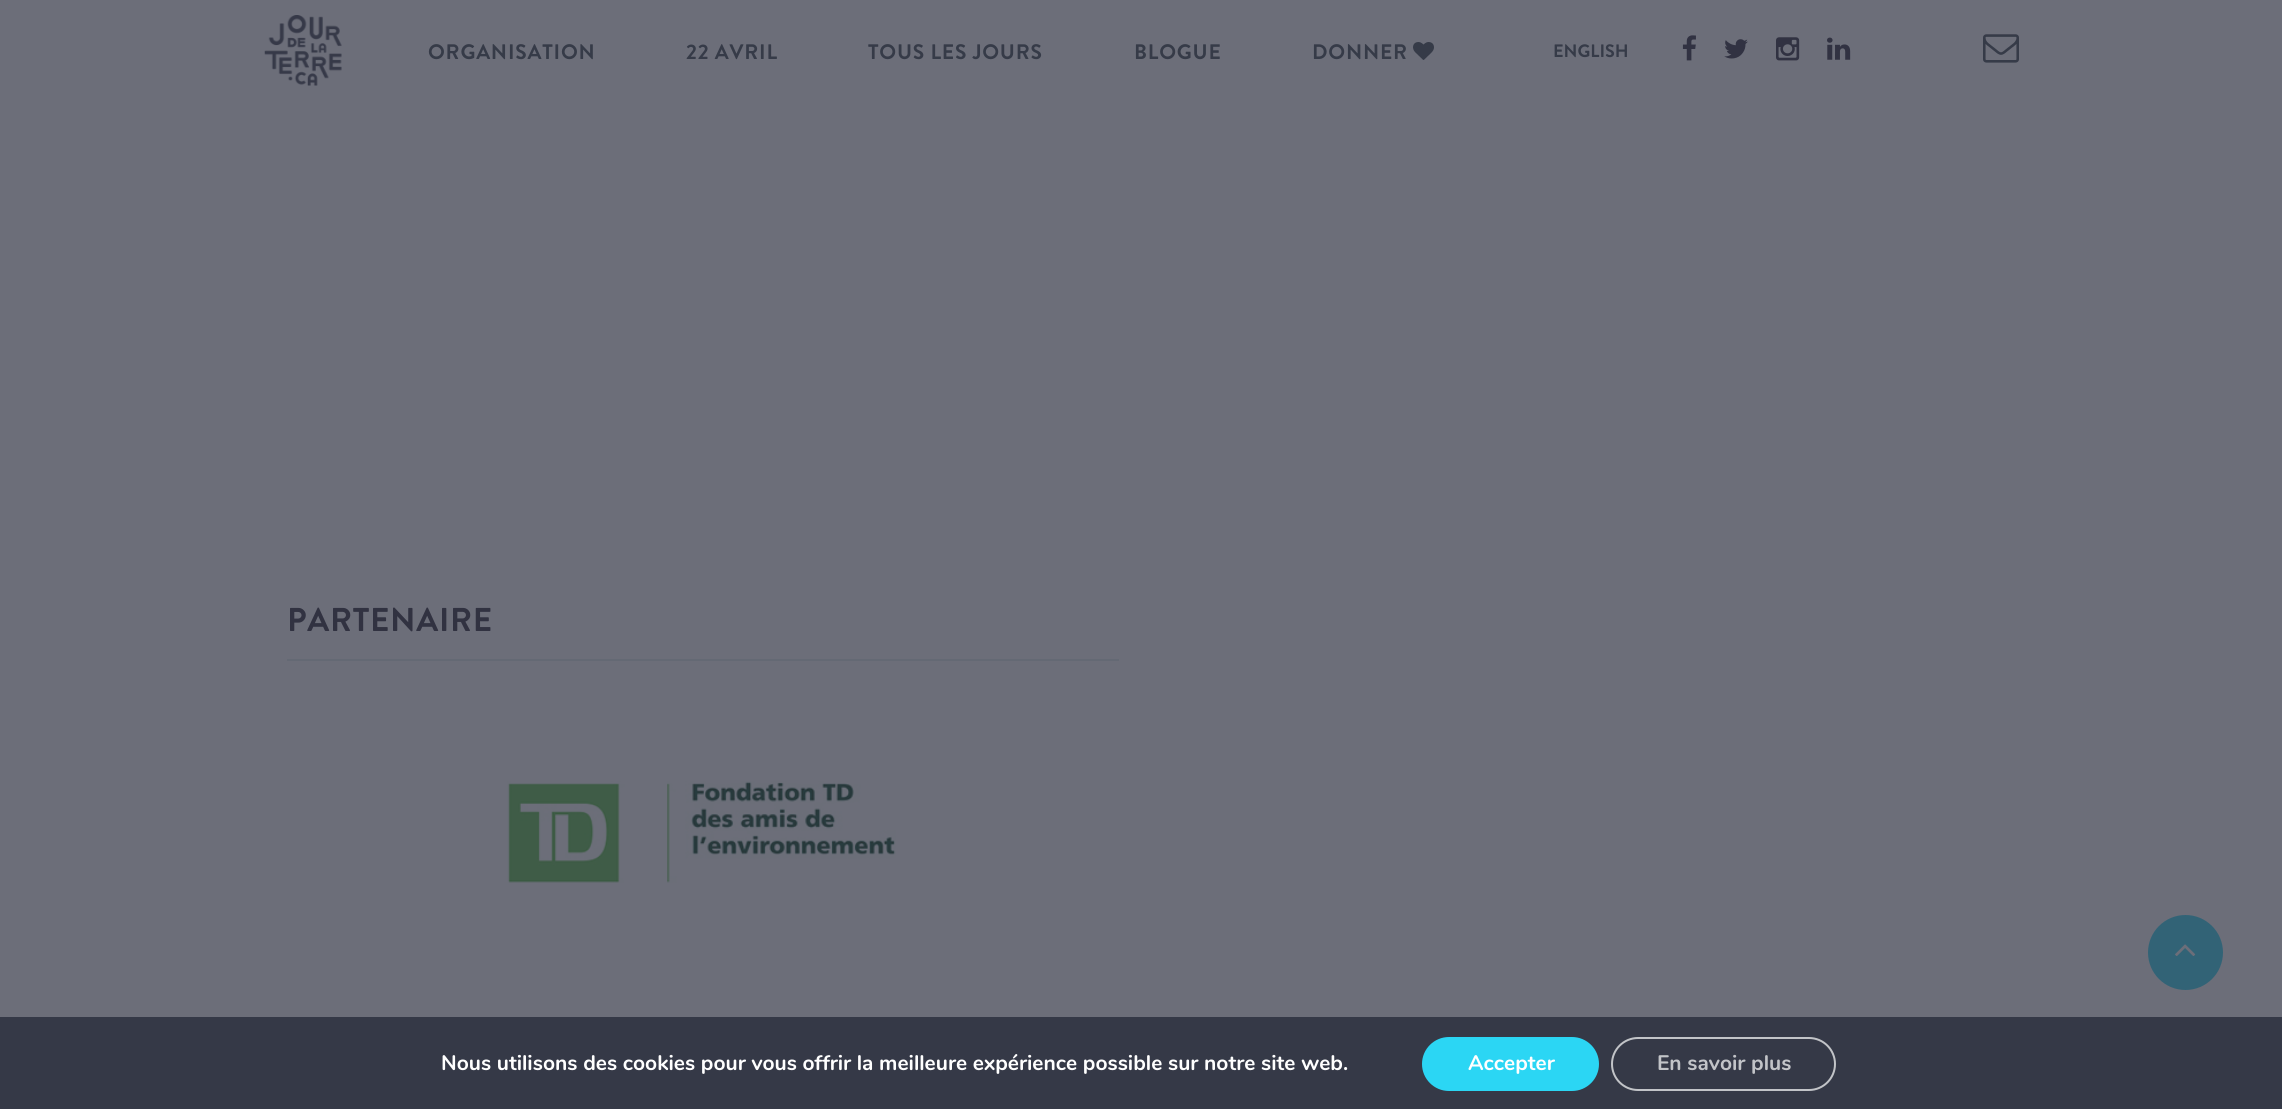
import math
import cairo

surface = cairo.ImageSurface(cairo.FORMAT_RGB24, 2282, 1109)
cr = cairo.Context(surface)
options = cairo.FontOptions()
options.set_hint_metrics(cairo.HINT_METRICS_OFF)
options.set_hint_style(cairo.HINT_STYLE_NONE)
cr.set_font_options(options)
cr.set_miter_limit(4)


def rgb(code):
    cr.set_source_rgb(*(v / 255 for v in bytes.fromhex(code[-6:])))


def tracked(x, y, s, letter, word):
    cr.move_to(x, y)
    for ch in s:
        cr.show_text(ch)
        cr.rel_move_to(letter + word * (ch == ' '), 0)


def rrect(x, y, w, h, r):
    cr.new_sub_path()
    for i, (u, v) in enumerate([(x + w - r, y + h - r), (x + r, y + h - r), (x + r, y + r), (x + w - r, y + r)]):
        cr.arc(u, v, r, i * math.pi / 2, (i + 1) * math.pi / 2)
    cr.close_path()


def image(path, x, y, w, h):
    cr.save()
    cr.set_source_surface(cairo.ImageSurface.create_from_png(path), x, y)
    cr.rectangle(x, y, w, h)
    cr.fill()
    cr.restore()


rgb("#6c6e79")
cr.paint()
image("img/1.png", 264, 15, 78, 71)
image("img/2.png", 1413, 42, 21, 18)
image("img/3.png", 1682, 35, 14, 26)
image("img/4.png", 1724, 39, 24, 20)
image("img/5.png", 1776, 37, 24, 24)
image("img/6.png", 1827, 37, 24, 23)
image("img/7.png", 1983, 34, 36, 29)
image("img/8.png", 0, 321, 2282, 140)
rgb("#646974")
cr.rectangle(287, 659, 832, 2)
cr.fill()
image("img/9.png", 507, 781, 389, 102)
rgb("#326376")
cr.arc(2185.5, 952.5, 37.5, 0, 2 * math.pi)
cr.fill()
image("img/10.png", 2175, 944, 21, 12)
rgb("#353947")
cr.rectangle(0, 1017, 2282, 92)
cr.fill()
rgb("#2bd6f4")
rrect(1422, 1037, 177, 54, 27)
cr.fill()
rrect(1612, 1038, 223, 52, 26)
rgb("#c2c4c8")
cr.stroke()
cr.select_font_face("Brandon Grotesque", cairo.FONT_SLANT_NORMAL, cairo.FONT_WEIGHT_BOLD)
cr.set_font_size(21)
rgb("#363b48")
for x, y, s in [
    (428, 59, "ORGANISATION"),
    (686, 59, "22 AVRIL"),
    (868, 59, "TOUS LES JOURS"),
    (1134, 59, "BLOGUE"),
    (1312, 59, "DONNER"),
]:
    tracked(x, y, s, 0.8, 0)
cr.set_font_size(18)
cr.move_to(1553, 57)
cr.show_text("ENGLISH")
cr.set_font_size(33)
rgb("#313241")
tracked(287, 631, "PARTENAIRE", 0.75, 0)
cr.select_font_face("Nunito", cairo.FONT_SLANT_NORMAL, cairo.FONT_WEIGHT_BOLD)
cr.set_font_size(21)
rgb("#ffffff")
cr.move_to(441, 1070)
cr.show_text("Nous utilisons des cookies pour vous offrir la meilleure expérience possible sur notre site web.")
cr.move_to(1468, 1070)
cr.show_text("Accepter")
rgb("#c2c4c8")
cr.move_to(1657, 1070)
cr.show_text("En savoir plus")
surface.write_to_png("page.png")
